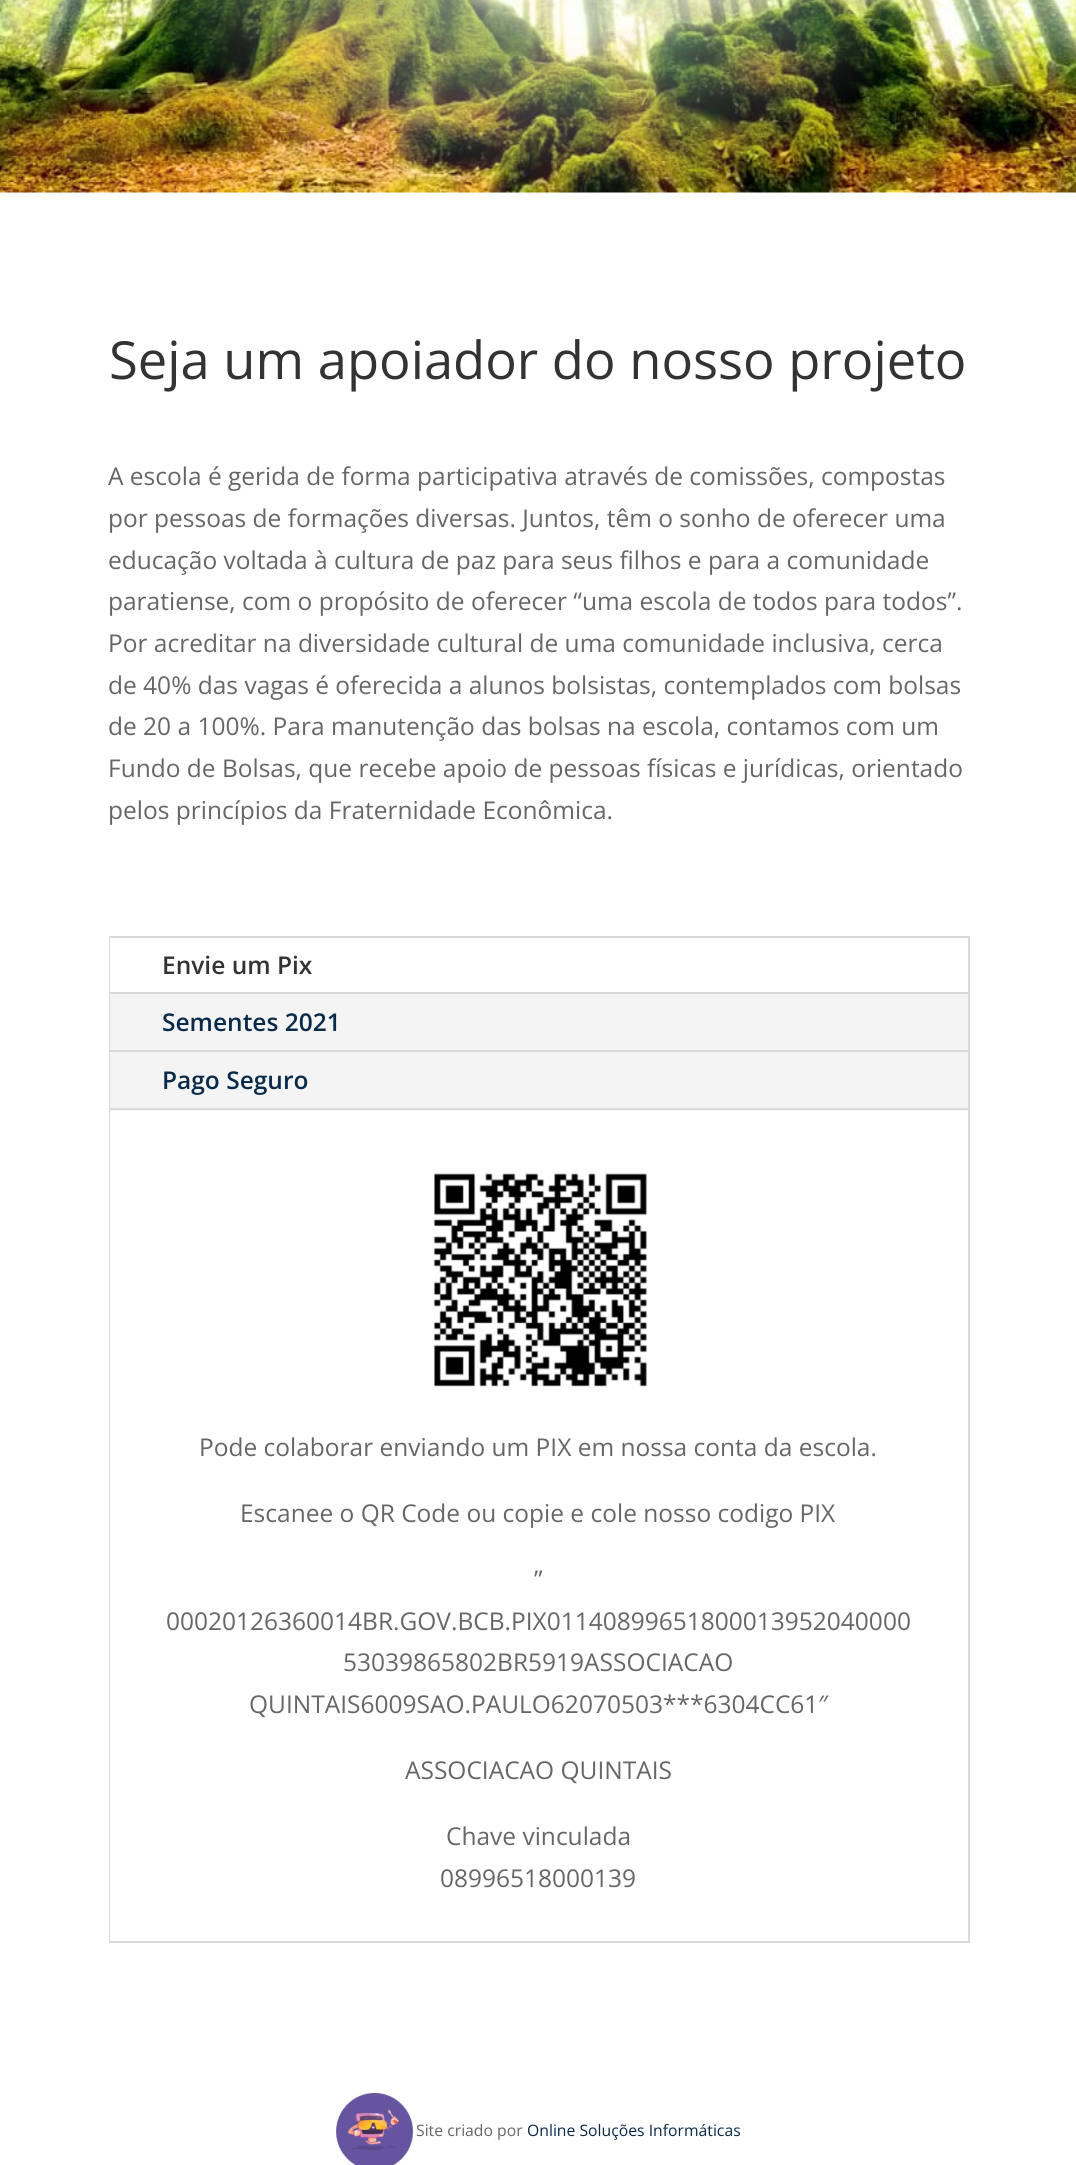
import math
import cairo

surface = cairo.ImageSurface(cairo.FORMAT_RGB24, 1076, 2165)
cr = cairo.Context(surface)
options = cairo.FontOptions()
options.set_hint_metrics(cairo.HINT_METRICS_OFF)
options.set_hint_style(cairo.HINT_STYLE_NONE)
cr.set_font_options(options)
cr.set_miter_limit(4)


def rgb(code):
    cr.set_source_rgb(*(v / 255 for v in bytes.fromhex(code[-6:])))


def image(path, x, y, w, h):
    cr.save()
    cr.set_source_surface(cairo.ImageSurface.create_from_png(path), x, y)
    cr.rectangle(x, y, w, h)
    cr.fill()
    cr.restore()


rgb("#ffffff")
cr.paint()
image("img/1.png", 0, 0, 1076, 193)
cr.rectangle(110, 937, 859, 1005)
rgb("#d9d9d9")
cr.stroke()
for x, y, w, h, color in [
    (110, 994, 858, 117, "#f4f4f4"),
    (110, 938, 1, 54, "#ffffff"),
    (110, 992, 858, 2, "#d9d9d9"),
    (110, 1050, 858, 2, "#d9d9d9"),
    (110, 1108, 858, 2, "#d9d9d9"),
    (110, 1111, 1, 830, "#ffffff"),
]:
    rgb(color)
    cr.rectangle(x, y, w, h)
    cr.fill()
image("img/2.png", 433, 1173, 215, 214)
image("img/3.png", 336, 2093, 77, 72)
cr.select_font_face("Open Sans")
cr.set_font_size(52.5)
rgb("#333333")
cr.move_to(109, 379)
cr.show_text("Seja um apoiador do nosso projeto")
cr.set_font_size(24.5)
rgb("#666666")
for x, y, s in [
    (108, 485, "A escola é gerida de forma participativa através de comissões, compostas"),
    (108, 527, "por pessoas de formações diversas. Juntos, têm o sonho de oferecer uma"),
    (108, 569, "educação voltada à cultura de paz para seus filhos e para a comunidade"),
    (108, 610, "paratiense, com o propósito de oferecer “uma escola de todos para todos”."),
    (108, 652, "Por acreditar na diversidade cultural de uma comunidade inclusiva, cerca"),
    (108, 694, "de 40% das vagas é oferecida a alunos bolsistas, contemplados com bolsas"),
    (108, 735, "de 20 a 100%. Para manutenção das bolsas na escola, contamos com um"),
    (108, 777, "Fundo de Bolsas, que recebe apoio de pessoas físicas e jurídicas, orientado"),
    (108, 819, "pelos princípios da Fraternidade Econômica."),
]:
    cr.move_to(x, y)
    cr.show_text(s)
cr.select_font_face("Open Sans SemiBold")
rgb("#333333")
cr.move_to(162, 974)
cr.show_text("Envie um Pix")
rgb("#092a48")
cr.move_to(162, 1031)
cr.show_text("Sementes 2021")
cr.move_to(162, 1089)
cr.show_text("Pago Seguro")
cr.select_font_face("Open Sans")
rgb("#666666")
for x, y, s in [
    (199, 1456, "Pode colaborar enviando um PIX em nossa conta da escola."),
    (240, 1522, "Escanee o QR Code ou copie e cole nosso codigo PIX"),
    (534, 1588, "”"),
    (166, 1630, "00020126360014BR.GOV.BCB.PIX01140899651800013952040000"),
    (343, 1671, "53039865802BR5919ASSOCIACAO"),
    (249, 1713, "QUINTAIS6009SAO.PAULO62070503***6304CC61″"),
    (405, 1779, "ASSOCIACAO QUINTAIS"),
    (446, 1845, "Chave vinculada"),
    (440, 1887, "08996518000139"),
]:
    cr.move_to(x, y)
    cr.show_text(s)
cr.set_font_size(15.75)
cr.move_to(416, 2136)
cr.show_text("Site criado por")
rgb("#092a48")
cr.move_to(527, 2136)
cr.show_text("Online Soluções Informáticas")
surface.write_to_png("page.png")
